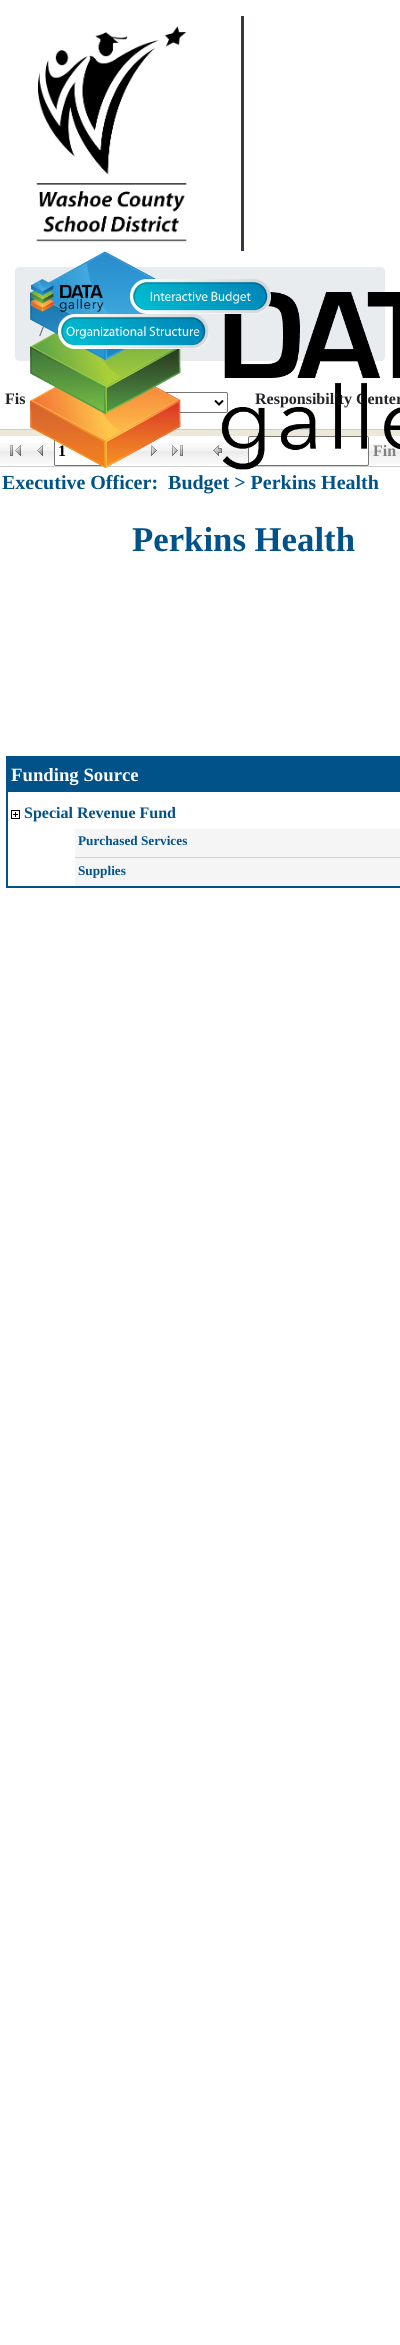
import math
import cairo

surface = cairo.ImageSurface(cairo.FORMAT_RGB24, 400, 2345)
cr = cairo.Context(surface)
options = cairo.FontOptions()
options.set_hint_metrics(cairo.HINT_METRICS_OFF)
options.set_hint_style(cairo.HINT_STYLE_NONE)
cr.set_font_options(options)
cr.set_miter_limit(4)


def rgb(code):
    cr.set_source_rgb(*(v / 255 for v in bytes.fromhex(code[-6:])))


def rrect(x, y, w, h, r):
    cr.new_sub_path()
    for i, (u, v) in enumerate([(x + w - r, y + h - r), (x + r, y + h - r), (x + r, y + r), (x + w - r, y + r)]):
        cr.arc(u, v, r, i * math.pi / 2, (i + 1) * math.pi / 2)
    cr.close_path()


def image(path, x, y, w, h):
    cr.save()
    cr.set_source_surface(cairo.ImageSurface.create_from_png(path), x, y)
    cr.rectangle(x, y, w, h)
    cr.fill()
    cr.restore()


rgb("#ffffff")
cr.paint()
image("img/1.png", 36, 26, 151, 216)
rgb("#343a40")
cr.rectangle(241, 16, 3, 235)
cr.fill()
rgb("#e9ecef")
rrect(15, 267, 370, 94, 4)
cr.fill()
rgb("#cccccc")
cr.rectangle(0, 429, 385, 1)
cr.fill()
rrect(93.5, 392.5, 134, 20, 1.5)
rgb("#767676")
cr.set_line_width(1)
cr.stroke()
cr.new_path()
cr.move_to(215, 400.5)
cr.line_to(219, 404.5)
cr.line_to(223, 400.5)
rgb("#000000")
cr.set_line_width(2)
cr.stroke()
rgb("#ece9d8")
cr.rectangle(0, 430, 400, 6)
cr.fill()
image("img/6.png", 0, 443, 400, 22)
rgb("#cccccc")
cr.rectangle(0, 466, 400, 1)
cr.fill()
image("img/7.png", 10, 445, 11, 11)
image("img/8.png", 37, 445, 6, 11)
rgb("#ffffff")
rrect(54.5, 436.5, 56, 29, 1.5)
cr.fill_preserve()
rgb("#767676")
cr.set_line_width(1)
cr.stroke()
image("img/9.png", 151, 445, 6, 11)
image("img/10.png", 172, 445, 11, 11)
image("img/11.png", 213, 445, 9, 11)
rgb("#ffffff")
rrect(248.5, 436.5, 120, 29, 1.5)
cr.fill_preserve()
rgb("#767676")
cr.stroke()
for x, y, w, h, color in [
    (6, 756, 394, 2, "#005288"),
    (6, 886, 394, 2, "#005288"),
    (6, 756, 2, 132, "#005288"),
    (8, 758, 392, 34, "#005288"),
]:
    rgb(color)
    cr.rectangle(x, y, w, h)
    cr.fill()
image("img/12.png", 11, 810, 9, 9)
for x, y, w, h, color in [
    (75, 829, 325, 28, "#f5f5f5"),
    (75, 857, 325, 1, "#d3d3d3"),
    (75, 858, 325, 28, "#f5f5f5"),
]:
    rgb(color)
    cr.rectangle(x, y, w, h)
    cr.fill()
cr.select_font_face("Roboto")
cr.set_font_size(16)
rgb("#6c757d")
cr.move_to(39, 335)
cr.show_text("/")
cr.select_font_face("Liberation Serif", cairo.FONT_SLANT_NORMAL, cairo.FONT_WEIGHT_BOLD)
rgb("#212529")
cr.move_to(5, 404)
cr.show_text("Fis")
cr.move_to(255, 404)
cr.show_text("Responsibility Center")
rgb("#000000")
cr.move_to(58, 456)
cr.show_text("1")
rgb("#808080")
cr.move_to(373, 456)
cr.show_text("Fin")
image("img/2.png", 30, 251, 370, 219)
image("img/5.png", 58, 314, 151, 35)
image("img/4.png", 130, 279, 141, 35)
image("img/3.png", 31, 279, 73, 33)
cr.set_font_size(20)
rgb("#005288")
cr.move_to(2, 489)
cr.show_text("Executive Officer:  Budget > Perkins Health")
cr.set_font_size(34.75)
cr.move_to(132, 551)
cr.show_text("Perkins Health")
cr.set_font_size(18.75)
rgb("#ffffff")
cr.move_to(11, 781)
cr.show_text("Funding Source")
cr.set_font_size(16)
rgb("#005288")
cr.move_to(24, 818)
cr.show_text("Special Revenue Fund")
cr.set_font_size(13.25)
cr.move_to(78, 845)
cr.show_text("Purchased Services")
cr.move_to(78, 875)
cr.show_text("Supplies")
surface.write_to_png("page.png")
